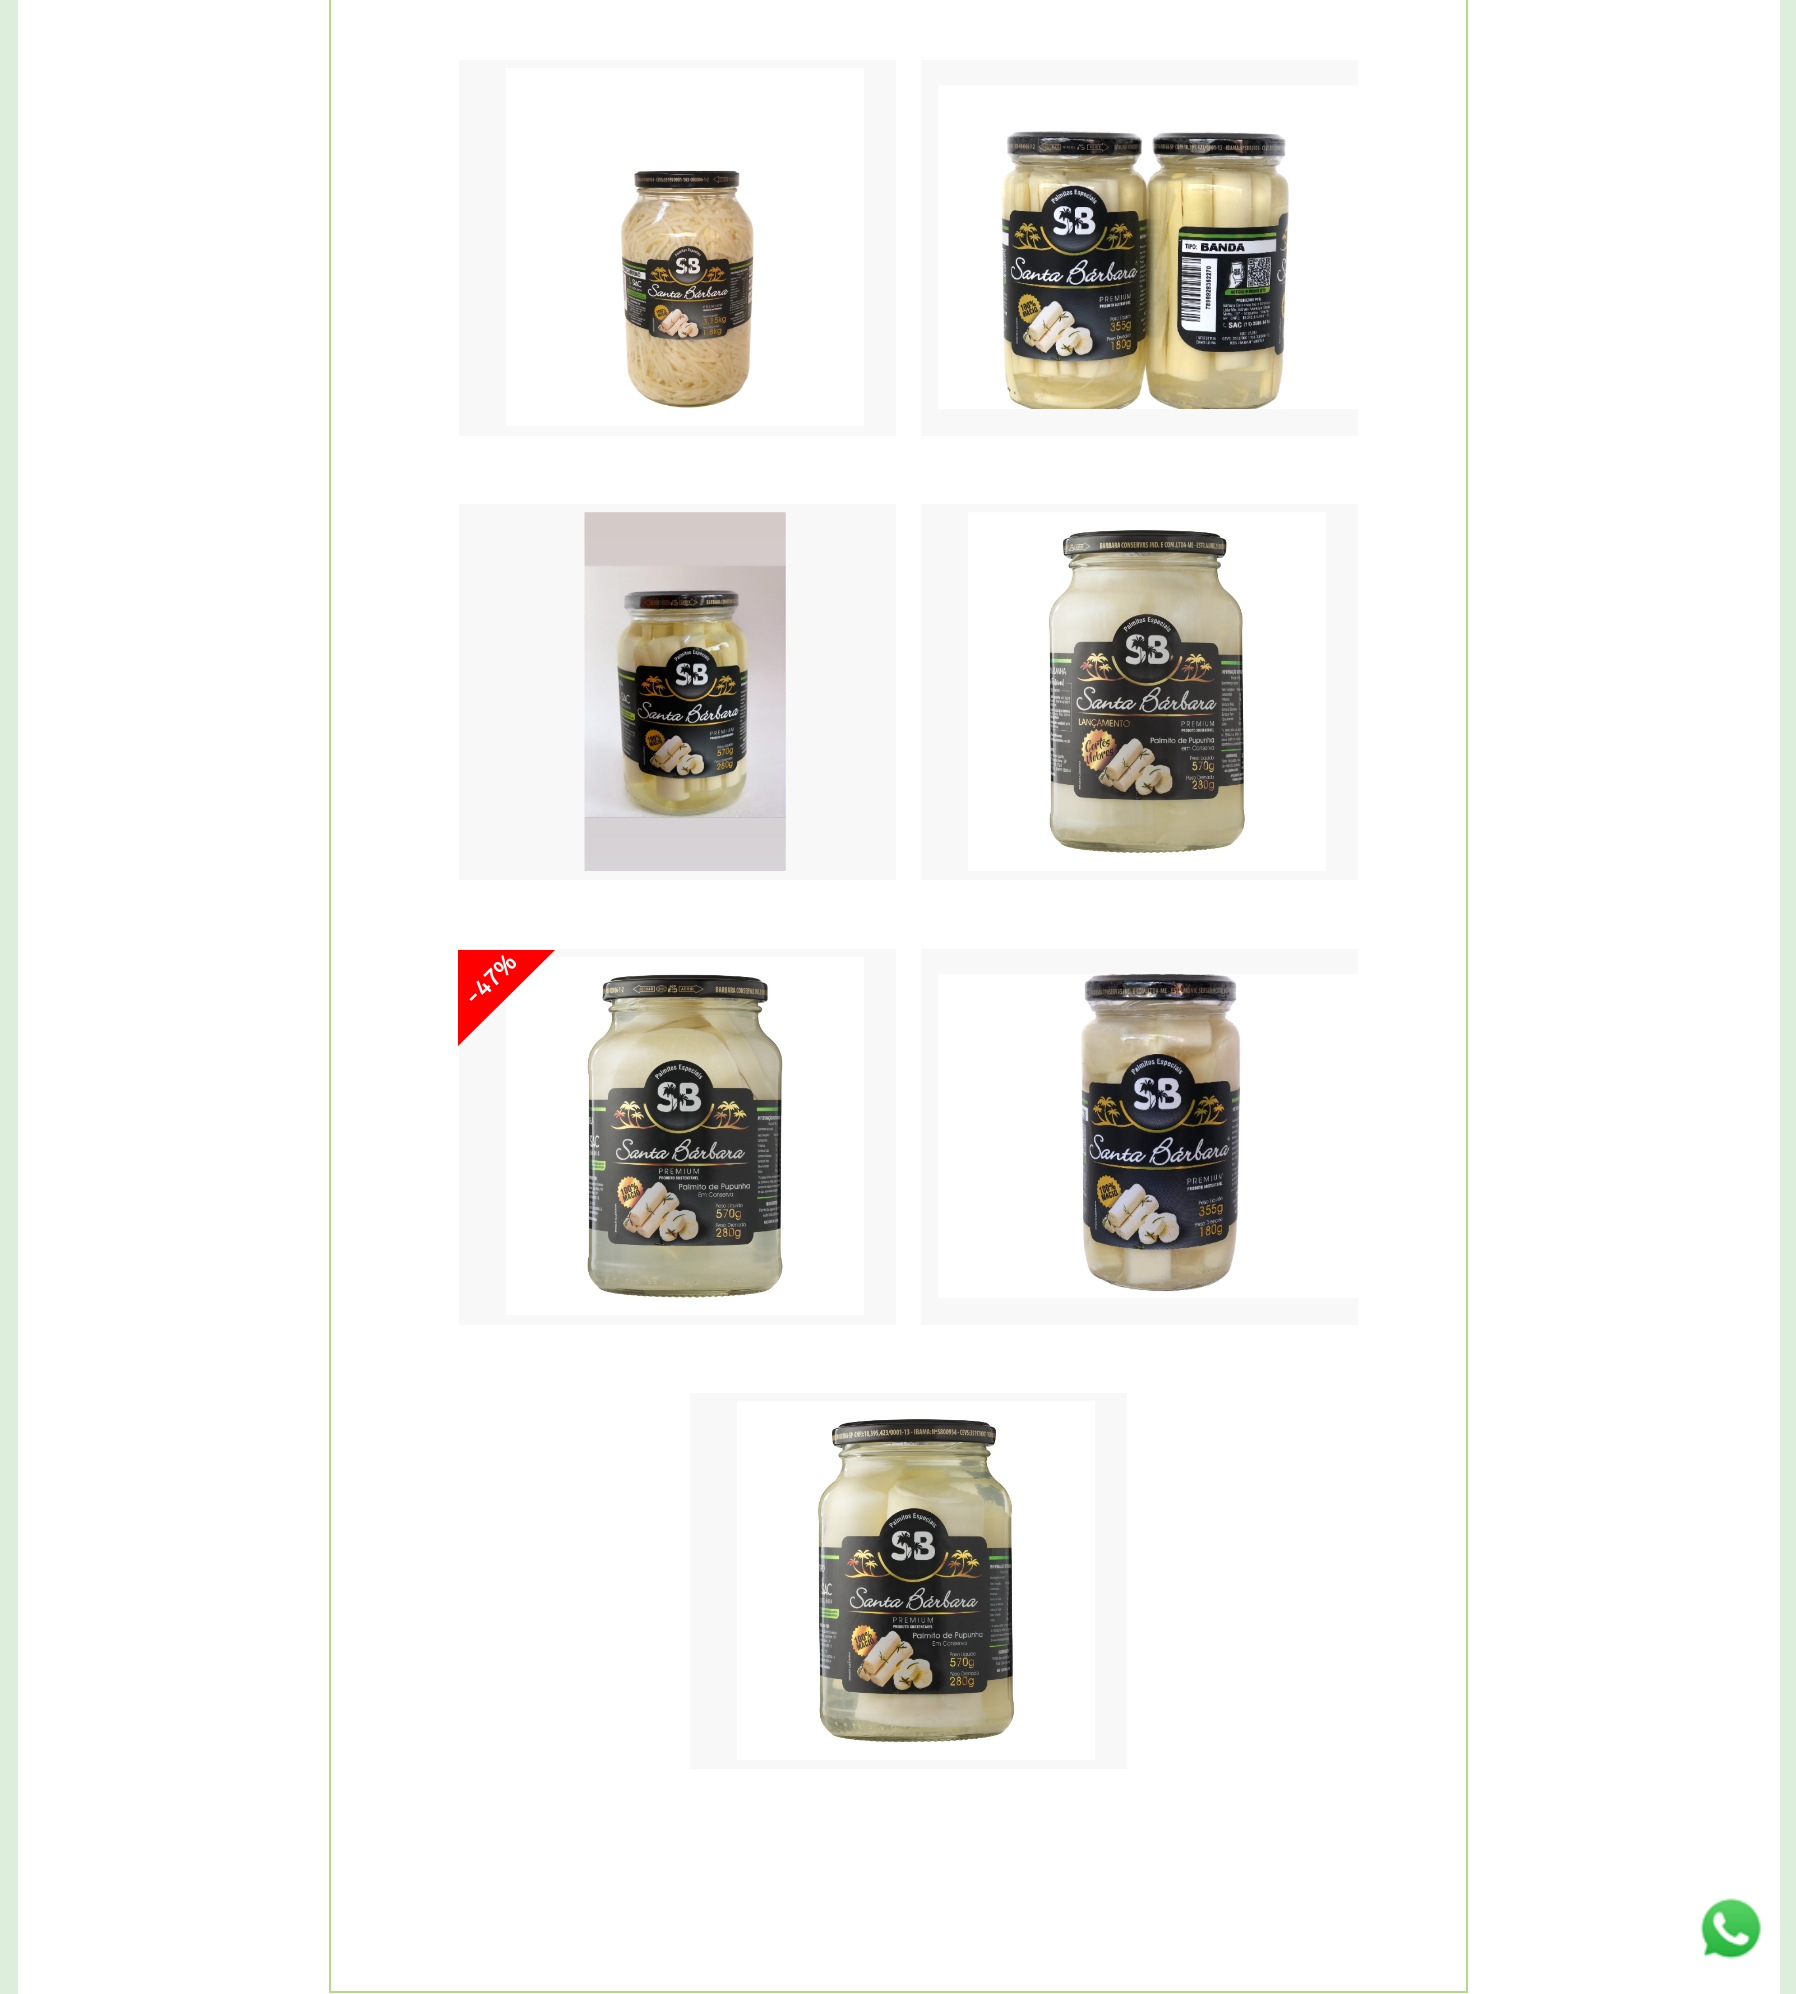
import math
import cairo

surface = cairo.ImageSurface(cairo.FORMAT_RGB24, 1796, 1994)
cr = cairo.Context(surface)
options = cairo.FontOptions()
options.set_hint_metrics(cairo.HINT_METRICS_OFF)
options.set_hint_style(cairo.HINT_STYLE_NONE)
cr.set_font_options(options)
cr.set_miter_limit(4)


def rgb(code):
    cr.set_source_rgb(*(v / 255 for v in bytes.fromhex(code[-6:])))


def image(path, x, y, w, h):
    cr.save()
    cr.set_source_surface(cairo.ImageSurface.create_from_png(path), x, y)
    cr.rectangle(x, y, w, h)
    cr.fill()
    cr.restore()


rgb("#ddeedd")
cr.paint()
rgb("#ffffff")
cr.rectangle(18, 0, 1762, 1994)
cr.fill()
cr.rectangle(330, -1, 1137, 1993)
rgb("#b4da89")
cr.stroke()
rgb("#f8f8f8")
cr.rectangle(459, 60, 437, 376)
cr.fill()
image("img/1.png", 506, 68, 358, 358)
cr.rectangle(921, 60, 437, 376)
cr.fill()
image("img/2.png", 938, 85, 420, 324)
cr.rectangle(459, 504, 437, 376)
cr.fill()
image("img/3.png", 584, 512, 202, 359)
cr.rectangle(921, 504, 437, 376)
cr.fill()
image("img/4.png", 968, 512, 358, 359)
cr.rectangle(459, 949, 437, 376)
cr.fill()
image("img/5.png", 506, 957, 358, 358)
rgb("#ff0000")
cr.new_path()
cr.move_to(458, 950)
cr.line_to(555, 950)
cr.line_to(458, 1046)
cr.close_path()
cr.fill()
rgb("#f8f8f8")
cr.rectangle(921, 949, 437, 376)
cr.fill()
image("img/6.png", 938, 974, 420, 324)
cr.rectangle(690, 1393, 437, 376)
cr.fill()
image("img/7.png", 737, 1401, 358, 359)
image("img/8.png", 1700, 1898, 61, 61)
cr.select_font_face("ABeeZee", cairo.FONT_SLANT_NORMAL, cairo.FONT_WEIGHT_BOLD)
cr.set_font_size(23)
rgb("#ffffff")
cr.save()
cr.translate(474, 1008)
cr.rotate(-45 * math.pi / 180)
cr.move_to(0, 0)
cr.show_text("-47%")
cr.restore()
surface.write_to_png("page.png")
